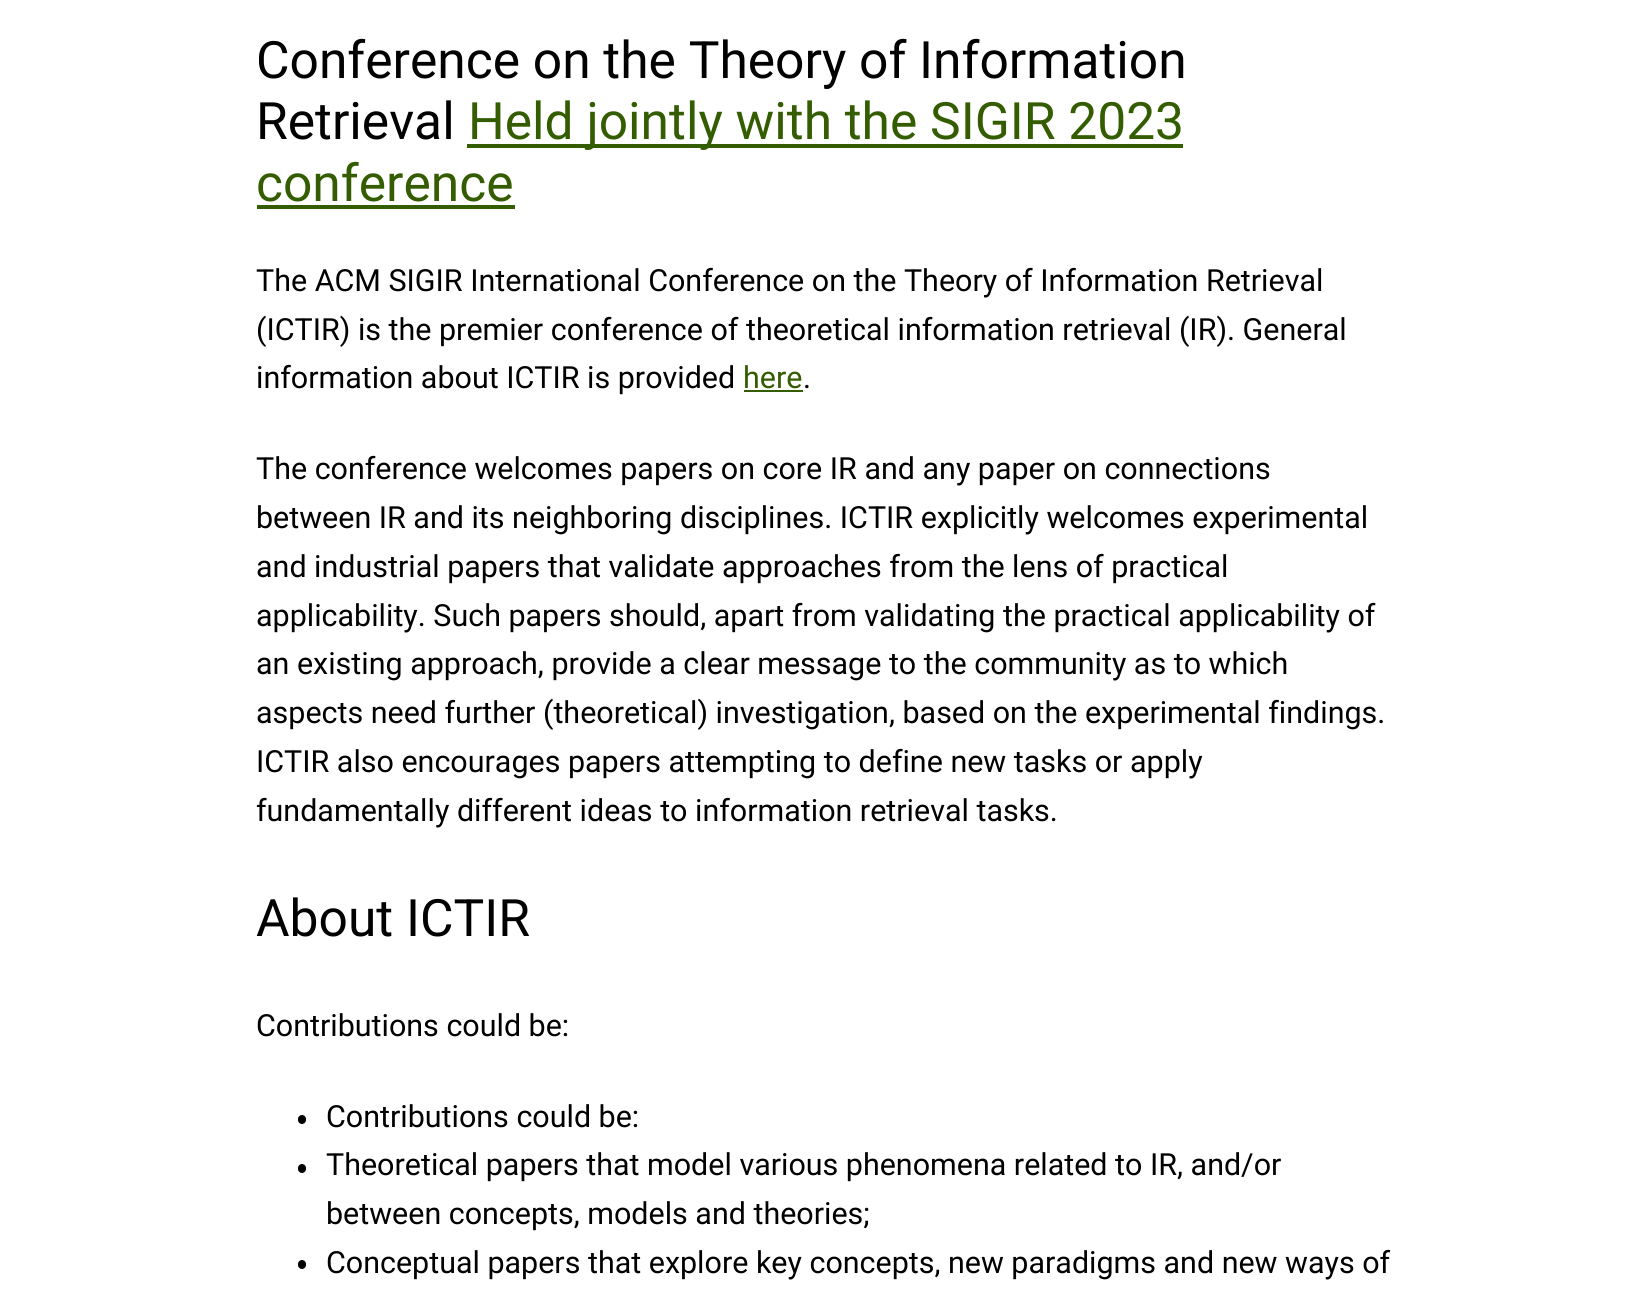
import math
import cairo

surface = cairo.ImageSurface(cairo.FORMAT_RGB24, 1649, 1306)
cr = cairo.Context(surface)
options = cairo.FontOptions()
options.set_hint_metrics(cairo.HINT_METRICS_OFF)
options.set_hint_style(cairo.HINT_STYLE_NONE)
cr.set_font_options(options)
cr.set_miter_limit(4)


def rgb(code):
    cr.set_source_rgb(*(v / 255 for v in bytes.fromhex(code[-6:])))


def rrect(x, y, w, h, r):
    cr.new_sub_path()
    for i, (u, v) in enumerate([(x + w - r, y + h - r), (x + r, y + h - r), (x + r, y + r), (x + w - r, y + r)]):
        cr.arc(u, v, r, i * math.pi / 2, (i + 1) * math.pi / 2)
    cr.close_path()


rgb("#ffffff")
cr.paint()
for x, y, w, h, color in [
    (467, 144, 716, 4, "#345c00"),
    (257, 205, 258, 4, "#345c00"),
    (744, 390, 59, 2, "#345c00"),
]:
    rgb(color)
    cr.rectangle(x, y, w, h)
    cr.fill()
rgb("#000000")
rrect(298, 1115, 8, 9, 4)
cr.fill()
rrect(298, 1164, 8, 9, 4)
cr.fill()
rrect(298, 1260, 8, 9, 4)
cr.fill()
cr.select_font_face("Roboto")
cr.set_font_size(51.5)
cr.move_to(256, 78)
cr.show_text("Conference on the Theory of Information")
cr.move_to(256, 139)
cr.show_text("Retrieval")
rgb("#345c00")
cr.move_to(468, 139)
cr.show_text("Held jointly with the SIGIR 2023")
cr.move_to(256, 201)
cr.show_text("conference")
cr.set_font_size(30.45)
rgb("#000000")
for x, y, s in [
    (256, 291, "The ACM SIGIR International Conference on the Theory of Information Retrieval"),
    (256, 340, "(ICTIR) is the premier conference of theoretical information retrieval (IR). General"),
    (256, 388, "information about ICTIR is provided"),
]:
    cr.move_to(x, y)
    cr.show_text(s)
rgb("#345c00")
cr.move_to(743, 388)
cr.show_text("here")
rgb("#000000")
for x, y, s in [
    (803, 388, "."),
    (256, 479, "The conference welcomes papers on core IR and any paper on connections"),
    (256, 528, "between IR and its neighboring disciplines. ICTIR explicitly welcomes experimental"),
    (256, 577, "and industrial papers that validate approaches from the lens of practical"),
    (256, 626, "applicability. Such papers should, apart from validating the practical applicability of"),
    (256, 674, "an existing approach, provide a clear message to the community as to which"),
    (256, 723, "aspects need further (theoretical) investigation, based on the experimental findings."),
    (256, 772, "ICTIR also encourages papers attempting to define new tasks or apply"),
    (256, 821, "fundamentally different ideas to information retrieval tasks."),
]:
    cr.move_to(x, y)
    cr.show_text(s)
cr.set_font_size(51.5)
cr.move_to(256, 936)
cr.show_text("About ICTIR")
cr.set_font_size(30.45)
for x, y, s in [
    (256, 1036, "Contributions could be:"),
    (326, 1127, "Contributions could be:"),
    (326, 1175, "Theoretical papers that model various phenomena related to IR, and/or"),
    (326, 1224, "between concepts, models and theories;"),
    (326, 1273, "Conceptual papers that explore key concepts, new paradigms and new ways of"),
]:
    cr.move_to(x, y)
    cr.show_text(s)
surface.write_to_png("page.png")
